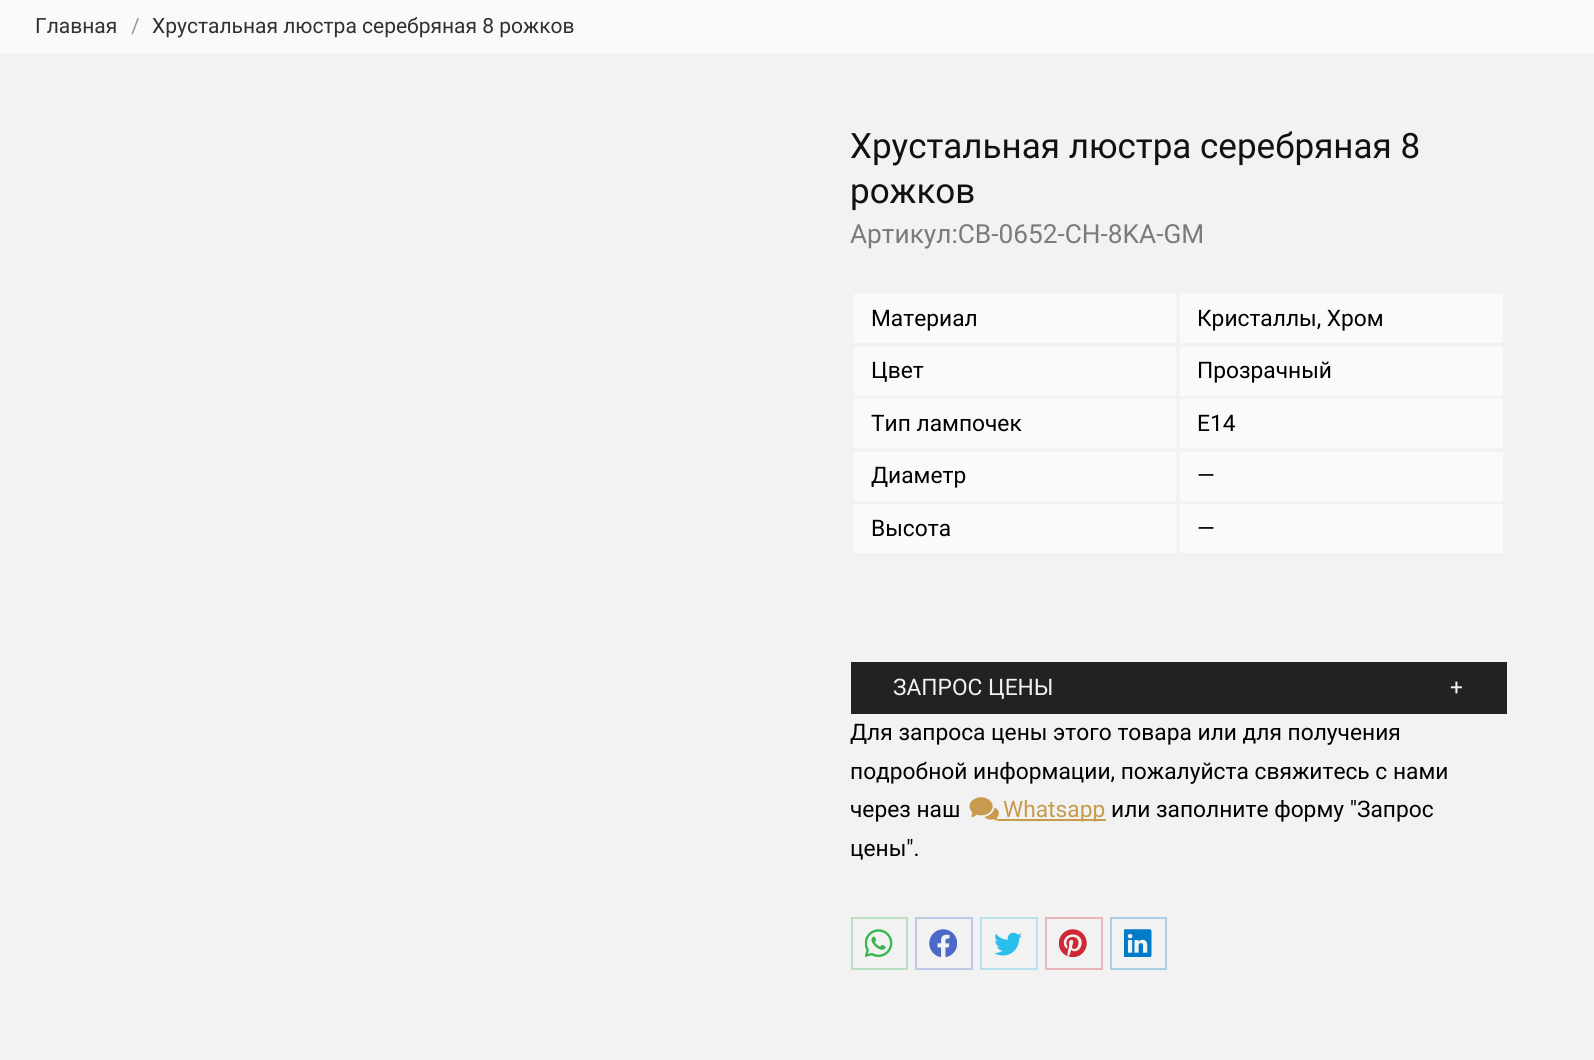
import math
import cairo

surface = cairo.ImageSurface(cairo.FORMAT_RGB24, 1594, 1060)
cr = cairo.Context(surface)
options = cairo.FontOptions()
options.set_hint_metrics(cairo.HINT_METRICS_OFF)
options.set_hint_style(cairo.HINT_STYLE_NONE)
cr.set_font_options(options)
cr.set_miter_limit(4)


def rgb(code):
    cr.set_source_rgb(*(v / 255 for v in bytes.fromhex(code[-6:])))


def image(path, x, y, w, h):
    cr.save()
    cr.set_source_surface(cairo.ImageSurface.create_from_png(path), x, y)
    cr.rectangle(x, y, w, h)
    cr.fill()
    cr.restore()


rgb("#f2f2f2")
cr.paint()
for x, y, w, h, color in [
    (0, 0, 1594, 53, "#fafafa"),
    (854, 294, 322, 49, "#fafafa"),
    (1180, 294, 323, 49, "#fafafa"),
    (854, 347, 322, 49, "#fafafa"),
    (1180, 347, 323, 49, "#fafafa"),
    (854, 399, 322, 49, "#fafafa"),
    (1180, 399, 323, 49, "#fafafa"),
    (854, 452, 322, 49, "#fafafa"),
    (1180, 452, 323, 49, "#fafafa"),
    (854, 504, 322, 49, "#fafafa"),
    (1180, 504, 323, 49, "#fafafa"),
    (851, 662, 656, 52, "#222222"),
]:
    rgb(color)
    cr.rectangle(x, y, w, h)
    cr.fill()
image("img/1.png", 969, 797, 30, 24)
rgb("#c79a4c")
cr.rectangle(998, 819, 108, 2)
cr.fill()
cr.rectangle(852, 918, 55, 51)
rgb("#bae0c1")
cr.stroke()
image("img/2.png", 865, 929, 28, 28)
cr.rectangle(916, 918, 56, 51)
rgb("#c0c9e5")
cr.stroke()
image("img/3.png", 929, 929, 28, 28)
cr.rectangle(981, 918, 56, 51)
rgb("#b6e2f0")
cr.stroke()
image("img/4.png", 994, 932, 28, 24)
cr.rectangle(1046, 918, 56, 51)
rgb("#e8b5b9")
cr.stroke()
image("img/5.png", 1059, 929, 28, 28)
cr.rectangle(1111, 918, 55, 51)
rgb("#a9cee5")
cr.stroke()
image("img/6.png", 1124, 929, 28, 28)
cr.select_font_face("Roboto")
cr.set_font_size(21)
rgb("#313131")
cr.move_to(35, 33)
cr.show_text("Главная")
rgb("#969696")
cr.move_to(131, 33)
cr.show_text("/")
rgb("#313131")
cr.move_to(152, 33)
cr.show_text("Хрустальная люстра серебряная 8 рожков")
cr.set_font_size(35)
rgb("#111111")
cr.move_to(850, 158)
cr.show_text("Хрустальная люстра серебряная 8")
cr.move_to(850, 203)
cr.show_text("рожков")
cr.set_font_size(26.25)
rgb("#7b7b7b")
cr.move_to(850, 243)
cr.show_text("Артикул:CB-0652-CH-8KA-GM")
cr.set_font_size(22.75)
rgb("#000000")
for x, y, s in [
    (871, 326, "Материал"),
    (1197, 326, "Кристаллы, Хром"),
    (871, 378, "Цвет"),
    (1197, 378, "Прозрачный"),
    (871, 431, "Тип лампочек"),
    (1197, 431, "E14"),
    (871, 483, "Диаметр"),
    (1197, 483, "—"),
    (871, 536, "Высота"),
    (1197, 536, "—"),
]:
    cr.move_to(x, y)
    cr.show_text(s)
rgb("#f2f2f2")
cr.move_to(893, 695)
cr.show_text("ЗАПРОС ЦЕНЫ")
cr.move_to(1450, 695)
cr.show_text("+")
rgb("#000000")
for x, y, s in [
    (850, 740, "Для запроса цены этого товара или для получения"),
    (850, 779, "подробной информации, пожалуйста свяжитесь с нами"),
    (850, 817, "через наш"),
]:
    cr.move_to(x, y)
    cr.show_text(s)
rgb("#c79a4c")
cr.move_to(1003, 817)
cr.show_text("Whatsapp")
rgb("#000000")
cr.move_to(1111, 817)
cr.show_text("или заполните форму \"Запрос")
cr.move_to(850, 856)
cr.show_text("цены\".")
surface.write_to_png("page.png")
